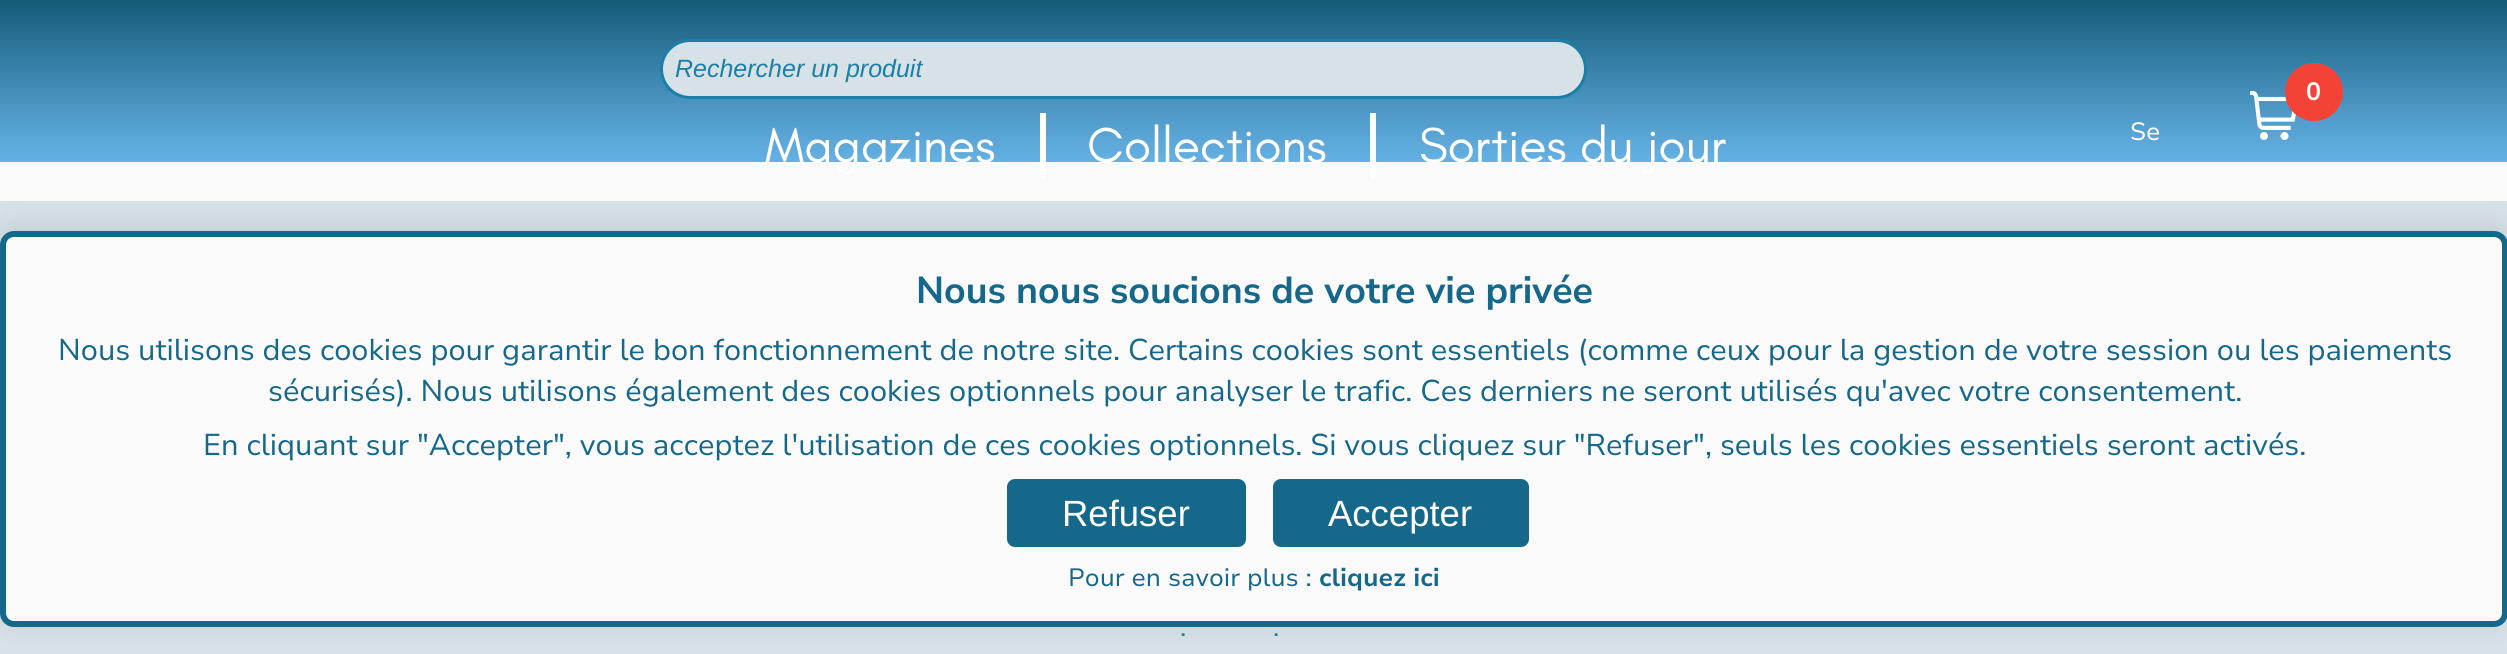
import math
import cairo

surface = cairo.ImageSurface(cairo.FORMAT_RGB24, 2507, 654)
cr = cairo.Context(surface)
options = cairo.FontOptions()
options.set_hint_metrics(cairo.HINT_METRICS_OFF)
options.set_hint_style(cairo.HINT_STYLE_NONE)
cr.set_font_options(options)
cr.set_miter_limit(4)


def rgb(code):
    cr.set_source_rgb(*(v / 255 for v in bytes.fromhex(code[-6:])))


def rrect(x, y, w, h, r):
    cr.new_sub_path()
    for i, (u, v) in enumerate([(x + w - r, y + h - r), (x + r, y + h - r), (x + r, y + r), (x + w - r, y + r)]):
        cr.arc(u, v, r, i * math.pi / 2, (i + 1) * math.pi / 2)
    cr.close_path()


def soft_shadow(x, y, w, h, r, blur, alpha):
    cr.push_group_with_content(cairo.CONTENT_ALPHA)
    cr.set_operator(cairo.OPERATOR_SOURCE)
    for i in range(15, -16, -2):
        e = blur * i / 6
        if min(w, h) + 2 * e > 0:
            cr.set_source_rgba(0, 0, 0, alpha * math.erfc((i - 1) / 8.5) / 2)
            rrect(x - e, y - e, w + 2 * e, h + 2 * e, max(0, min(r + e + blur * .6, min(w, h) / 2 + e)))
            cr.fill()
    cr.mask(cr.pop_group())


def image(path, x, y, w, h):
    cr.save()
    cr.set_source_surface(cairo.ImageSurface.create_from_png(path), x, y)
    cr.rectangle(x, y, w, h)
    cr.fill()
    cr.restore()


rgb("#fafafa")
cr.paint()
gradient = cairo.LinearGradient(1254, 0, 1254, 162)
gradient.add_color_stop_rgba(0, 0.075, 0.349, 0.459, 1)
gradient.add_color_stop_rgba(1, 0.204, 0.596, 0.859, 0.75)
cr.set_source(gradient)
cr.rectangle(0, 0, 2507, 162)
cr.fill()
rgb("#d6e2e6")
rrect(661.5, 40.5, 924, 57, 28.5)
cr.fill_preserve()
rgb("#1b7fa8")
cr.set_line_width(3)
cr.stroke()
rgb("#ffffff")
cr.rectangle(1040, 113, 6, 66)
cr.fill()
cr.rectangle(1370, 113, 6, 66)
cr.fill()
image("img/1.png", 2250, 91, 46, 49)
rgb("#f44336")
cr.arc(2314, 92, 29, 0, 2 * math.pi)
cr.fill()
rgb("#d6e2e6")
cr.rectangle(0, 201, 2507, 453)
cr.fill()
rgb("#000000")
soft_shadow(0, 226, 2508, 396, 14, 14, 0.1)
rgb("#fafafa")
rrect(3, 234, 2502, 390, 11)
cr.fill_preserve()
rgb("#16688a")
cr.set_line_width(6)
cr.stroke()
rrect(1007, 479, 239, 68, 8)
cr.fill()
rrect(1273, 479, 256, 68, 8)
cr.fill()
cr.select_font_face("Liberation Sans", cairo.FONT_SLANT_ITALIC)
cr.set_font_size(25)
rgb("#1b7fa8")
cr.move_to(675, 77)
cr.show_text("Rechercher un produit")
cr.select_font_face("Teachers")
cr.set_font_size(50)
rgb("#ffffff")
for x, y, s in [
    (765, 162, "Magazines"),
    (1087, 162, "Collections"),
    (1419, 162, "Sorties du jour"),
]:
    cr.move_to(x, y)
    cr.show_text(s)
cr.select_font_face("Nunito Sans", cairo.FONT_SLANT_NORMAL, cairo.FONT_WEIGHT_BOLD)
cr.set_font_size(25)
cr.move_to(2306, 100)
cr.show_text("0")
cr.select_font_face("Nunito Sans")
cr.move_to(2130, 140)
cr.show_text("Se")
cr.select_font_face("Nunito Sans", cairo.FONT_SLANT_NORMAL, cairo.FONT_WEIGHT_BOLD)
cr.set_font_size(37.6)
rgb("#16688a")
cr.move_to(916, 303)
cr.show_text("Nous nous soucions de votre vie privée")
cr.select_font_face("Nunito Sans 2")
cr.set_font_size(30.1)
for x, y, s in [
    (58, 360, "Nous utilisons des cookies pour garantir le bon fonctionnement de notre site. Certains cookies sont essentiels (comme ceux pour la gestion de votre session ou les paiements"),
    (268, 401, "sécurisés). Nous utilisons également des cookies optionnels pour analyser le trafic. Ces derniers ne seront utilisés qu'avec votre consentement."),
    (203, 455, "En cliquant sur \"Accepter\", vous acceptez l'utilisation de ces cookies optionnels. Si vous cliquez sur \"Refuser\", seuls les cookies essentiels seront activés."),
]:
    cr.move_to(x, y)
    cr.show_text(s)
cr.select_font_face("Liberation Sans")
cr.set_font_size(36.5)
rgb("#ffffff")
cr.move_to(1062, 526)
cr.show_text("Refuser")
cr.move_to(1328, 526)
cr.show_text("Accepter")
cr.select_font_face("Nunito Sans")
cr.set_font_size(25)
rgb("#16688a")
cr.move_to(1068, 586)
cr.show_text("Pour en savoir plus :")
cr.select_font_face("Nunito Sans 2", cairo.FONT_SLANT_NORMAL, cairo.FONT_WEIGHT_BOLD)
cr.move_to(1319, 586)
cr.show_text("cliquez ici")
cr.select_font_face("Nunito Sans")
rgb("#1b7fa8")
cr.move_to(1180, 636)
cr.show_text(".")
cr.move_to(1273, 636)
cr.show_text(".")
surface.write_to_png("page.png")
